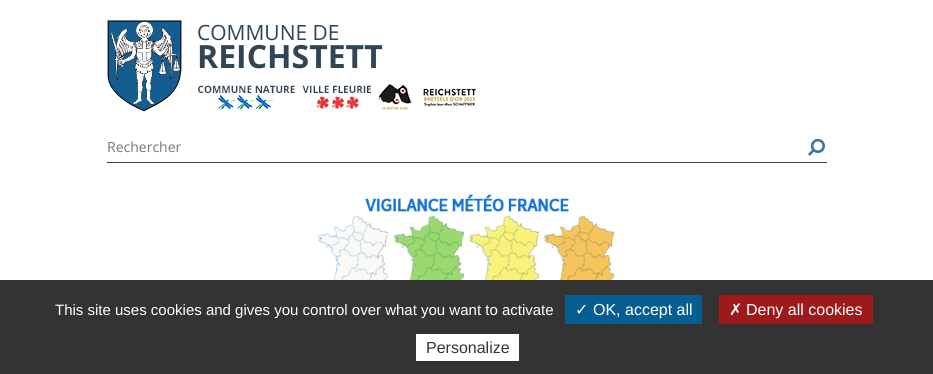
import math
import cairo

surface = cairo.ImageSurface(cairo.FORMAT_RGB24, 933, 374)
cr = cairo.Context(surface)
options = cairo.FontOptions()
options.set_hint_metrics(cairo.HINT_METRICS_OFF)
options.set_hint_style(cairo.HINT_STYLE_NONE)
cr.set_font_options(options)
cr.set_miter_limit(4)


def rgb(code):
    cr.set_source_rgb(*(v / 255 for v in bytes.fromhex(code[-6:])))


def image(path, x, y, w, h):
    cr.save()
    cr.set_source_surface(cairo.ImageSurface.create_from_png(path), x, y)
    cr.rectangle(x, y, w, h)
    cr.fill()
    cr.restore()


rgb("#ffffff")
cr.paint()
image("img/1.png", 107, 20, 75, 92)
image("img/2.png", 198, 85, 97, 24)
image("img/3.png", 302, 85, 69, 24)
image("img/4.png", 378, 84, 98, 26)
rgb("#314555")
cr.rectangle(107, 162, 720, 1)
cr.fill()
image("img/5.png", 808, 138, 17, 18)
image("img/6.png", 318, 194, 297, 86)
for x, y, w, h, color in [
    (0, 280, 933, 94, "#333333"),
    (565, 295, 137, 29, "#055d92"),
    (719, 295, 154, 29, "#9c1a1a"),
    (416, 334, 103, 27, "#ffffff"),
]:
    rgb(color)
    cr.rectangle(x, y, w, h)
    cr.fill()
cr.select_font_face("Open Sans")
cr.set_font_size(21)
rgb("#314555")
cr.move_to(197, 40)
cr.show_text("COMMUNE DE")
cr.select_font_face("Open Sans", cairo.FONT_SLANT_NORMAL, cairo.FONT_WEIGHT_BOLD)
cr.set_font_size(32)
cr.move_to(197, 68)
cr.show_text("REICHSTETT")
cr.select_font_face("Open Sans")
cr.set_font_size(14)
rgb("#757575")
cr.move_to(107, 152)
cr.show_text("Rechercher")
cr.select_font_face("Liberation Sans")
cr.set_font_size(15)
rgb("#ffffff")
cr.move_to(55, 315)
cr.show_text("This site uses cookies and gives you control over what you want to activate")
cr.select_font_face("DejaVu Sans")
cr.set_font_size(16)
cr.move_to(575, 315)
cr.show_text("✓")
cr.select_font_face("Liberation Sans")
cr.move_to(593, 315)
cr.show_text("OK, accept all")
cr.select_font_face("DejaVu Sans")
cr.move_to(729, 315)
cr.show_text("✗")
cr.select_font_face("Liberation Sans")
cr.move_to(746, 315)
cr.show_text("Deny all cookies")
rgb("#333333")
cr.move_to(426, 353)
cr.show_text("Personalize")
surface.write_to_png("page.png")
